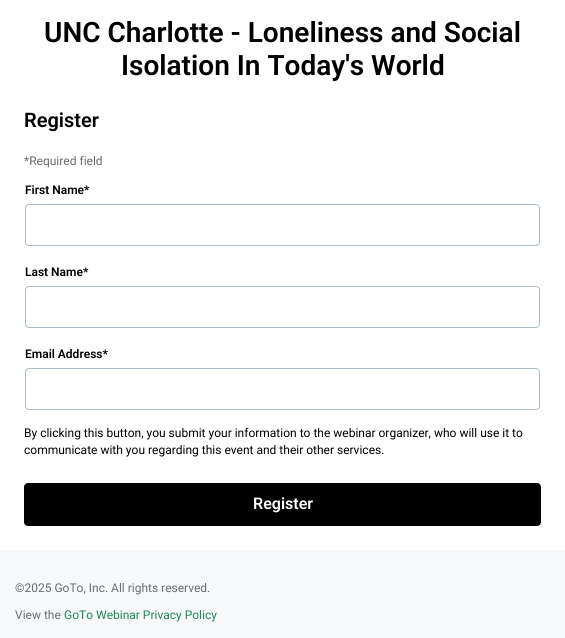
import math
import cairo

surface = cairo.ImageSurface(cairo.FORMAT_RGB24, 565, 638)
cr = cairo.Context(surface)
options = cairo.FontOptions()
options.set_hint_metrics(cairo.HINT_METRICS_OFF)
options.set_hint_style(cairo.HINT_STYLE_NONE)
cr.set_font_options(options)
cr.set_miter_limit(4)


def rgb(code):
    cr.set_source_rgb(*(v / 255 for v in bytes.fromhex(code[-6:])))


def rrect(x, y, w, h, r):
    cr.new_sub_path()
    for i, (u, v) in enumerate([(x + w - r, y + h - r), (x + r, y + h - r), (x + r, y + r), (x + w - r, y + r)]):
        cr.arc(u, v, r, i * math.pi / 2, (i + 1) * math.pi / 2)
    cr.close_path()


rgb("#ffffff")
cr.paint()
rrect(25.5, 204.5, 514, 41, 3.5)
rgb("#acbcc7")
cr.set_line_width(1)
cr.stroke()
rrect(25.5, 286.5, 514, 41, 3.5)
cr.stroke()
rrect(25.5, 368.5, 514, 41, 3.5)
cr.stroke()
rgb("#000000")
rrect(24, 483, 517, 43, 4)
cr.fill()
rgb("#f7f8fa")
cr.rectangle(0, 550, 565, 88)
cr.fill()
cr.select_font_face("Roboto SemiBold")
cr.set_font_size(28)
rgb("#000000")
cr.move_to(44, 42)
cr.show_text("UNC Charlotte - Loneliness and Social")
cr.move_to(121, 75)
cr.show_text("Isolation In Today's World")
cr.set_font_size(20)
cr.move_to(24, 127)
cr.show_text("Register")
cr.select_font_face("Roboto")
cr.set_font_size(12)
rgb("#6b6969")
cr.move_to(24, 165)
cr.show_text("*Required field")
cr.select_font_face("Roboto SemiBold")
rgb("#000000")
for x, y, s in [
    (25, 194, "First Name*"),
    (25, 276, "Last Name*"),
    (25, 358, "Email Address*"),
]:
    cr.move_to(x, y)
    cr.show_text(s)
cr.select_font_face("Roboto")
cr.move_to(24, 437)
cr.show_text("By clicking this button, you submit your information to the webinar organizer, who will use it to")
cr.move_to(24, 454)
cr.show_text("communicate with you regarding this event and their other services.")
cr.select_font_face("Roboto SemiBold")
cr.set_font_size(16)
rgb("#ffffff")
cr.move_to(253, 509)
cr.show_text("Register")
cr.select_font_face("Roboto")
cr.set_font_size(12)
rgb("#6a6d71")
cr.move_to(15, 592)
cr.show_text("©2025 GoTo, Inc. All rights reserved.")
cr.move_to(15, 619)
cr.show_text("View the")
rgb("#1b8756")
cr.move_to(64, 619)
cr.show_text("GoTo Webinar Privacy Policy")
surface.write_to_png("page.png")
